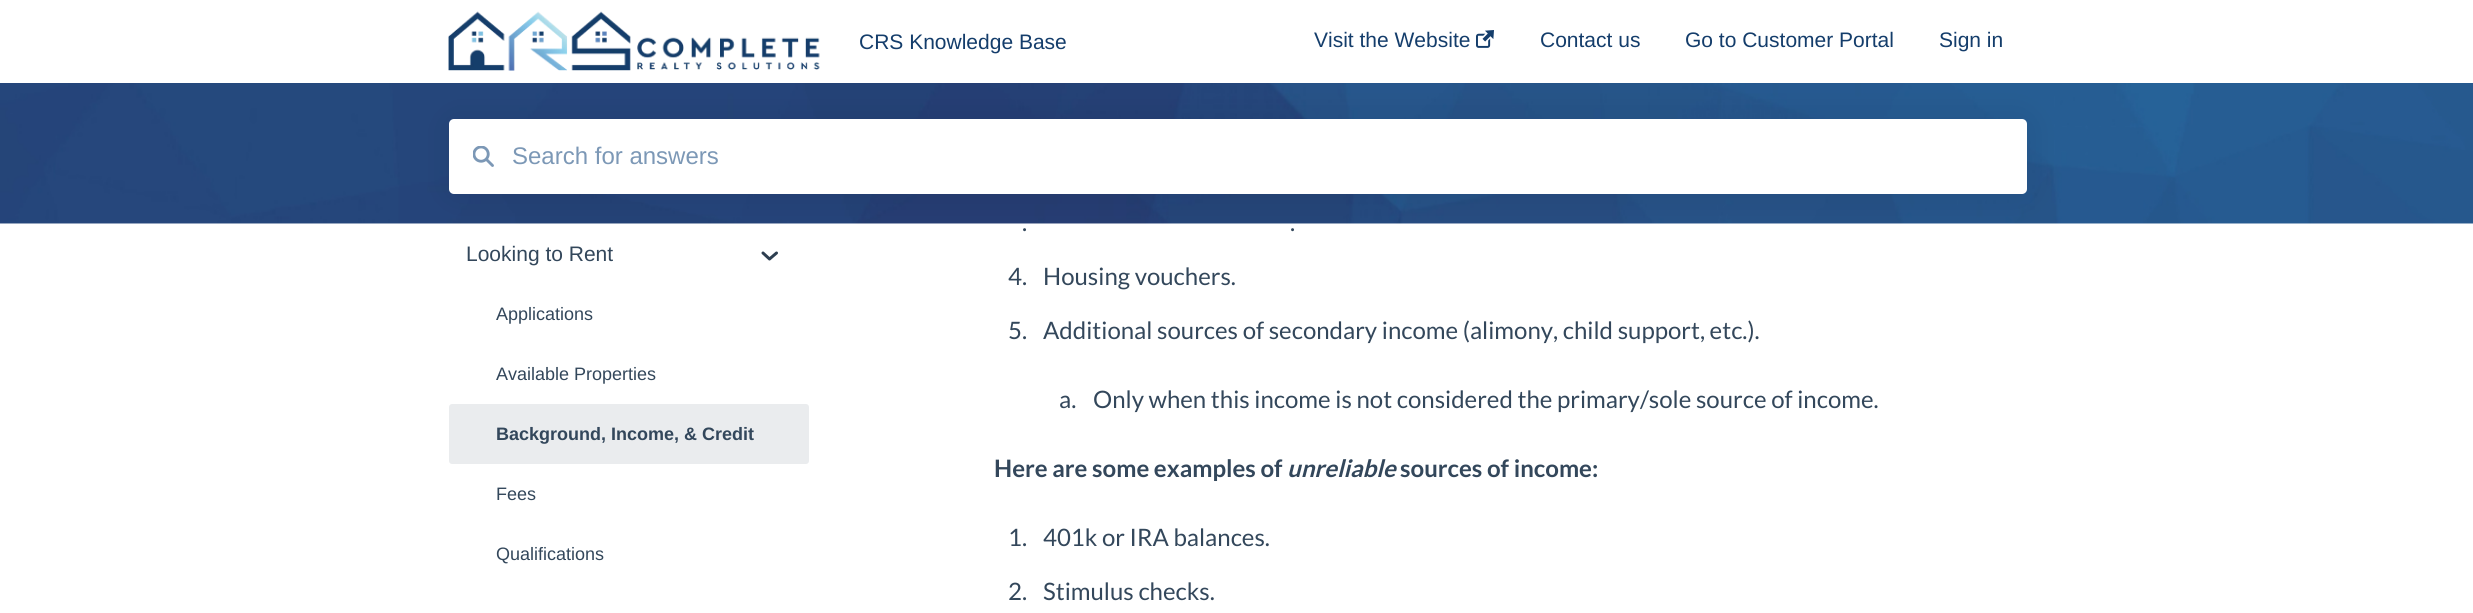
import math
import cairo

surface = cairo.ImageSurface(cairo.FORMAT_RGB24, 2473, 613)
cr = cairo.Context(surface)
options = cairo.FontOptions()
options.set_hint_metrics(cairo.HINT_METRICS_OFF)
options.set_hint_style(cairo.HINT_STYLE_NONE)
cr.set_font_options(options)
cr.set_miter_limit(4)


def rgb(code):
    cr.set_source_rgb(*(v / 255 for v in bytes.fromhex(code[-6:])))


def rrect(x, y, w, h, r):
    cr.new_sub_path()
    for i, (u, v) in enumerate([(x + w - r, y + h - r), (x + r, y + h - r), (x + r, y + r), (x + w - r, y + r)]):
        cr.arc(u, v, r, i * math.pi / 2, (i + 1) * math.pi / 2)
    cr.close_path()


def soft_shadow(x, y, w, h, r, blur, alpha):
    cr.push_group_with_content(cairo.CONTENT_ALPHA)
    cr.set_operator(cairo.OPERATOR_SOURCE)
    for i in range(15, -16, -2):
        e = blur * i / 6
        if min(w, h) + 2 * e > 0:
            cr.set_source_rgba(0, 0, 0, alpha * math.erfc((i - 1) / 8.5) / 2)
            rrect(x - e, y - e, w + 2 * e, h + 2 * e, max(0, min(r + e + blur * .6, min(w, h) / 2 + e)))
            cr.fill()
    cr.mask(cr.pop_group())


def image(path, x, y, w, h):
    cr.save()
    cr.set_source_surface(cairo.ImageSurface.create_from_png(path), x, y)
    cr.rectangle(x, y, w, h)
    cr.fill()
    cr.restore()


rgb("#ffffff")
cr.paint()
image("img/3.png", 0, 83, 2473, 141)
rgb("#000000")
soft_shadow(449, 120, 1578, 75, 5, 18, 0.08)
image("img/1.png", 448, 11, 372, 60)
image("img/2.png", 1476, 30, 18, 18)
rgb("#ffffff")
rrect(449, 119, 1578, 75, 5)
cr.fill()
image("img/4.png", 473, 146, 21, 21)
cr.new_path()
cr.move_to(776.5, 253)
cr.line_to(769.5, 259)
cr.line_to(763, 253)
rgb("#2d3e50")
cr.set_line_width(3)
cr.set_line_cap(cairo.LINE_CAP_ROUND)
cr.set_line_join(cairo.LINE_JOIN_ROUND)
cr.stroke()
rgb("#eaecee")
rrect(449, 404, 360, 60, 3)
cr.fill()
cr.select_font_face("Liberation Sans")
cr.set_font_size(21)
rgb("#143d6b")
for x, y, s in [
    (859, 49, "CRS Knowledge Base"),
    (1314, 47, "Visit the Website"),
    (1540, 47, "Contact us"),
    (1685, 47, "Go to Customer Portal"),
    (1939, 47, "Sign in"),
]:
    cr.move_to(x, y)
    cr.show_text(s)
cr.set_font_size(24)
rgb("#7c98b6")
cr.move_to(512, 164)
cr.show_text("Search for answers")
cr.set_font_size(21)
rgb("#33475b")
cr.move_to(466, 261)
cr.show_text("Looking to Rent")
cr.set_font_size(18)
cr.move_to(496, 320)
cr.show_text("Applications")
cr.move_to(496, 380)
cr.show_text("Available Properties")
cr.select_font_face("Liberation Sans", cairo.FONT_SLANT_NORMAL, cairo.FONT_WEIGHT_BOLD)
cr.move_to(496, 440)
cr.show_text("Background, Income, & Credit")
cr.select_font_face("Liberation Sans")
cr.move_to(496, 500)
cr.show_text("Fees")
cr.move_to(496, 560)
cr.show_text("Qualifications")
cr.select_font_face("Lato")
cr.set_font_size(24)
for x, y, s in [
    (1022, 231, "."),
    (1290, 231, "."),
    (1008, 285, "4."),
    (1043, 285, "Housing vouchers."),
    (1008, 339, "5."),
    (1043, 339, "Additional sources of secondary income (alimony, child support, etc.)."),
    (1059, 408, "a."),
    (1093, 408, "Only when this income is not considered the primary/sole source of income."),
]:
    cr.move_to(x, y)
    cr.show_text(s)
cr.select_font_face("Lato", cairo.FONT_SLANT_NORMAL, cairo.FONT_WEIGHT_BOLD)
cr.move_to(994, 477)
cr.show_text("Here are some examples of")
cr.select_font_face("Lato", cairo.FONT_SLANT_ITALIC, cairo.FONT_WEIGHT_BOLD)
cr.move_to(1287, 477)
cr.show_text("unreliable")
cr.select_font_face("Lato", cairo.FONT_SLANT_NORMAL, cairo.FONT_WEIGHT_BOLD)
cr.move_to(1400, 477)
cr.show_text("sources of income:")
cr.select_font_face("Lato")
for x, y, s in [
    (1008, 546, "1."),
    (1043, 546, "401k or IRA balances."),
    (1008, 600, "2."),
    (1043, 600, "Stimulus checks."),
]:
    cr.move_to(x, y)
    cr.show_text(s)
surface.write_to_png("page.png")
